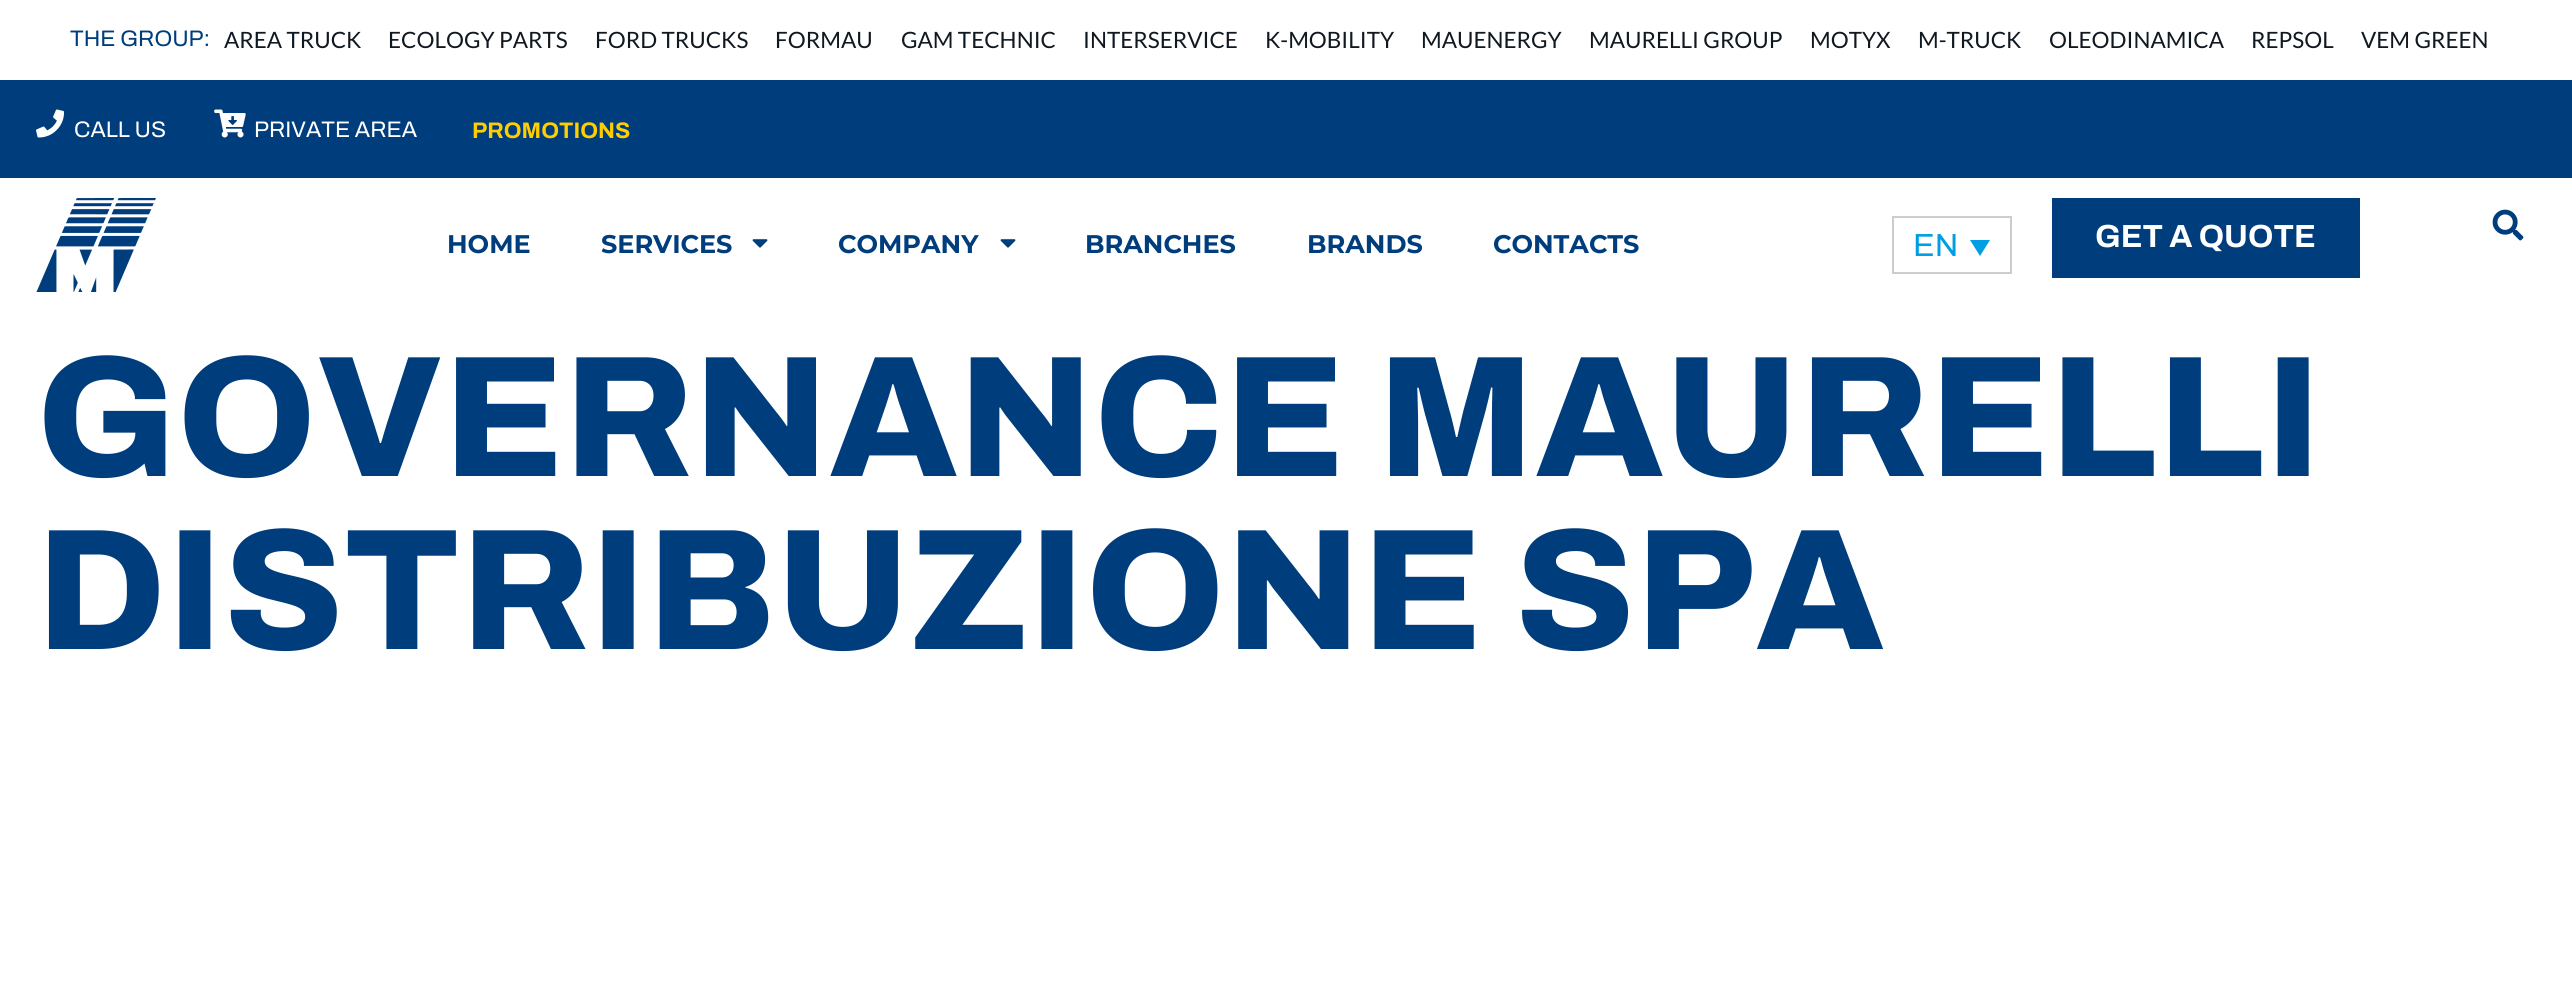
import math
import cairo

surface = cairo.ImageSurface(cairo.FORMAT_RGB24, 2572, 1005)
cr = cairo.Context(surface)
options = cairo.FontOptions()
options.set_hint_metrics(cairo.HINT_METRICS_OFF)
options.set_hint_style(cairo.HINT_STYLE_NONE)
cr.set_font_options(options)
cr.set_miter_limit(4)


def rgb(code):
    cr.set_source_rgb(*(v / 255 for v in bytes.fromhex(code[-6:])))


def image(path, x, y, w, h):
    cr.save()
    cr.set_source_surface(cairo.ImageSurface.create_from_png(path), x, y)
    cr.rectangle(x, y, w, h)
    cr.fill()
    cr.restore()


rgb("#ffffff")
cr.paint()
rgb("#003d7c")
cr.rectangle(0, 80, 2572, 98)
cr.fill()
image("img/1.png", 36, 109, 29, 29)
image("img/2.png", 214, 109, 32, 29)
image("img/3.png", 36, 198, 120, 94)
image("img/4.png", 752, 239, 16, 9)
image("img/4.png", 1000, 239, 16, 9)
cr.rectangle(1893, 217, 118, 56)
rgb("#cdcdcd")
cr.stroke()
rgb("#009fe3")
cr.new_path()
cr.move_to(1970, 240)
cr.line_to(1990, 240)
cr.line_to(1980, 256)
cr.close_path()
cr.fill()
rgb("#003d7c")
cr.rectangle(2052, 198, 308, 80)
cr.fill()
image("img/5.png", 2492, 209, 32, 32)
cr.select_font_face("Archivo")
cr.set_font_size(22.5)
cr.move_to(70, 46)
cr.show_text("THE GROUP:")
cr.select_font_face("Lato")
rgb("#101820")
for x, y, s in [
    (224, 48, "AREA TRUCK"),
    (388, 48, "ECOLOGY PARTS"),
    (595, 48, "FORD TRUCKS"),
    (775, 48, "FORMAU"),
    (901, 48, "GAM TECHNIC"),
    (1083, 48, "INTERSERVICE"),
    (1265, 48, "K-MOBILITY"),
    (1421, 48, "MAUENERGY"),
    (1589, 48, "MAURELLI GROUP"),
    (1810, 48, "MOTYX"),
    (1918, 48, "M-TRUCK"),
    (2049, 48, "OLEODINAMICA"),
    (2251, 48, "REPSOL"),
    (2361, 48, "VEM GREEN"),
]:
    cr.move_to(x, y)
    cr.show_text(s)
cr.select_font_face("Archivo")
rgb("#ffffff")
cr.move_to(74, 137)
cr.show_text("CALL US")
cr.move_to(254, 137)
cr.show_text("PRIVATE AREA")
cr.select_font_face("Archivo", cairo.FONT_SLANT_NORMAL, cairo.FONT_WEIGHT_BOLD)
rgb("#ffce00")
cr.move_to(472, 138)
cr.show_text("PROMOTIONS")
cr.select_font_face("Montserrat", cairo.FONT_SLANT_NORMAL, cairo.FONT_WEIGHT_BOLD)
cr.set_font_size(25.5)
rgb("#003d7c")
for x, y, s in [
    (447, 253, "HOME"),
    (601, 253, "SERVICES"),
    (838, 253, "COMPANY"),
    (1085, 253, "BRANCHES"),
    (1307, 253, "BRANDS"),
    (1493, 253, "CONTACTS"),
]:
    cr.move_to(x, y)
    cr.show_text(s)
cr.select_font_face("Archivo")
cr.set_font_size(32)
rgb("#009fe3")
cr.move_to(1913, 256)
cr.show_text("EN")
cr.select_font_face("Archivo", cairo.FONT_SLANT_NORMAL, cairo.FONT_WEIGHT_BOLD)
rgb("#ffffff")
cr.move_to(2095, 247)
cr.show_text("GET A QUOTE")
cr.select_font_face("Archivo ExtraBold")
cr.set_font_size(172.75)
rgb("#003d7c")
cr.move_to(36, 476)
cr.show_text("GOVERNANCE MAURELLI")
cr.move_to(36, 649)
cr.show_text("DISTRIBUZIONE SPA")
surface.write_to_png("page.png")
